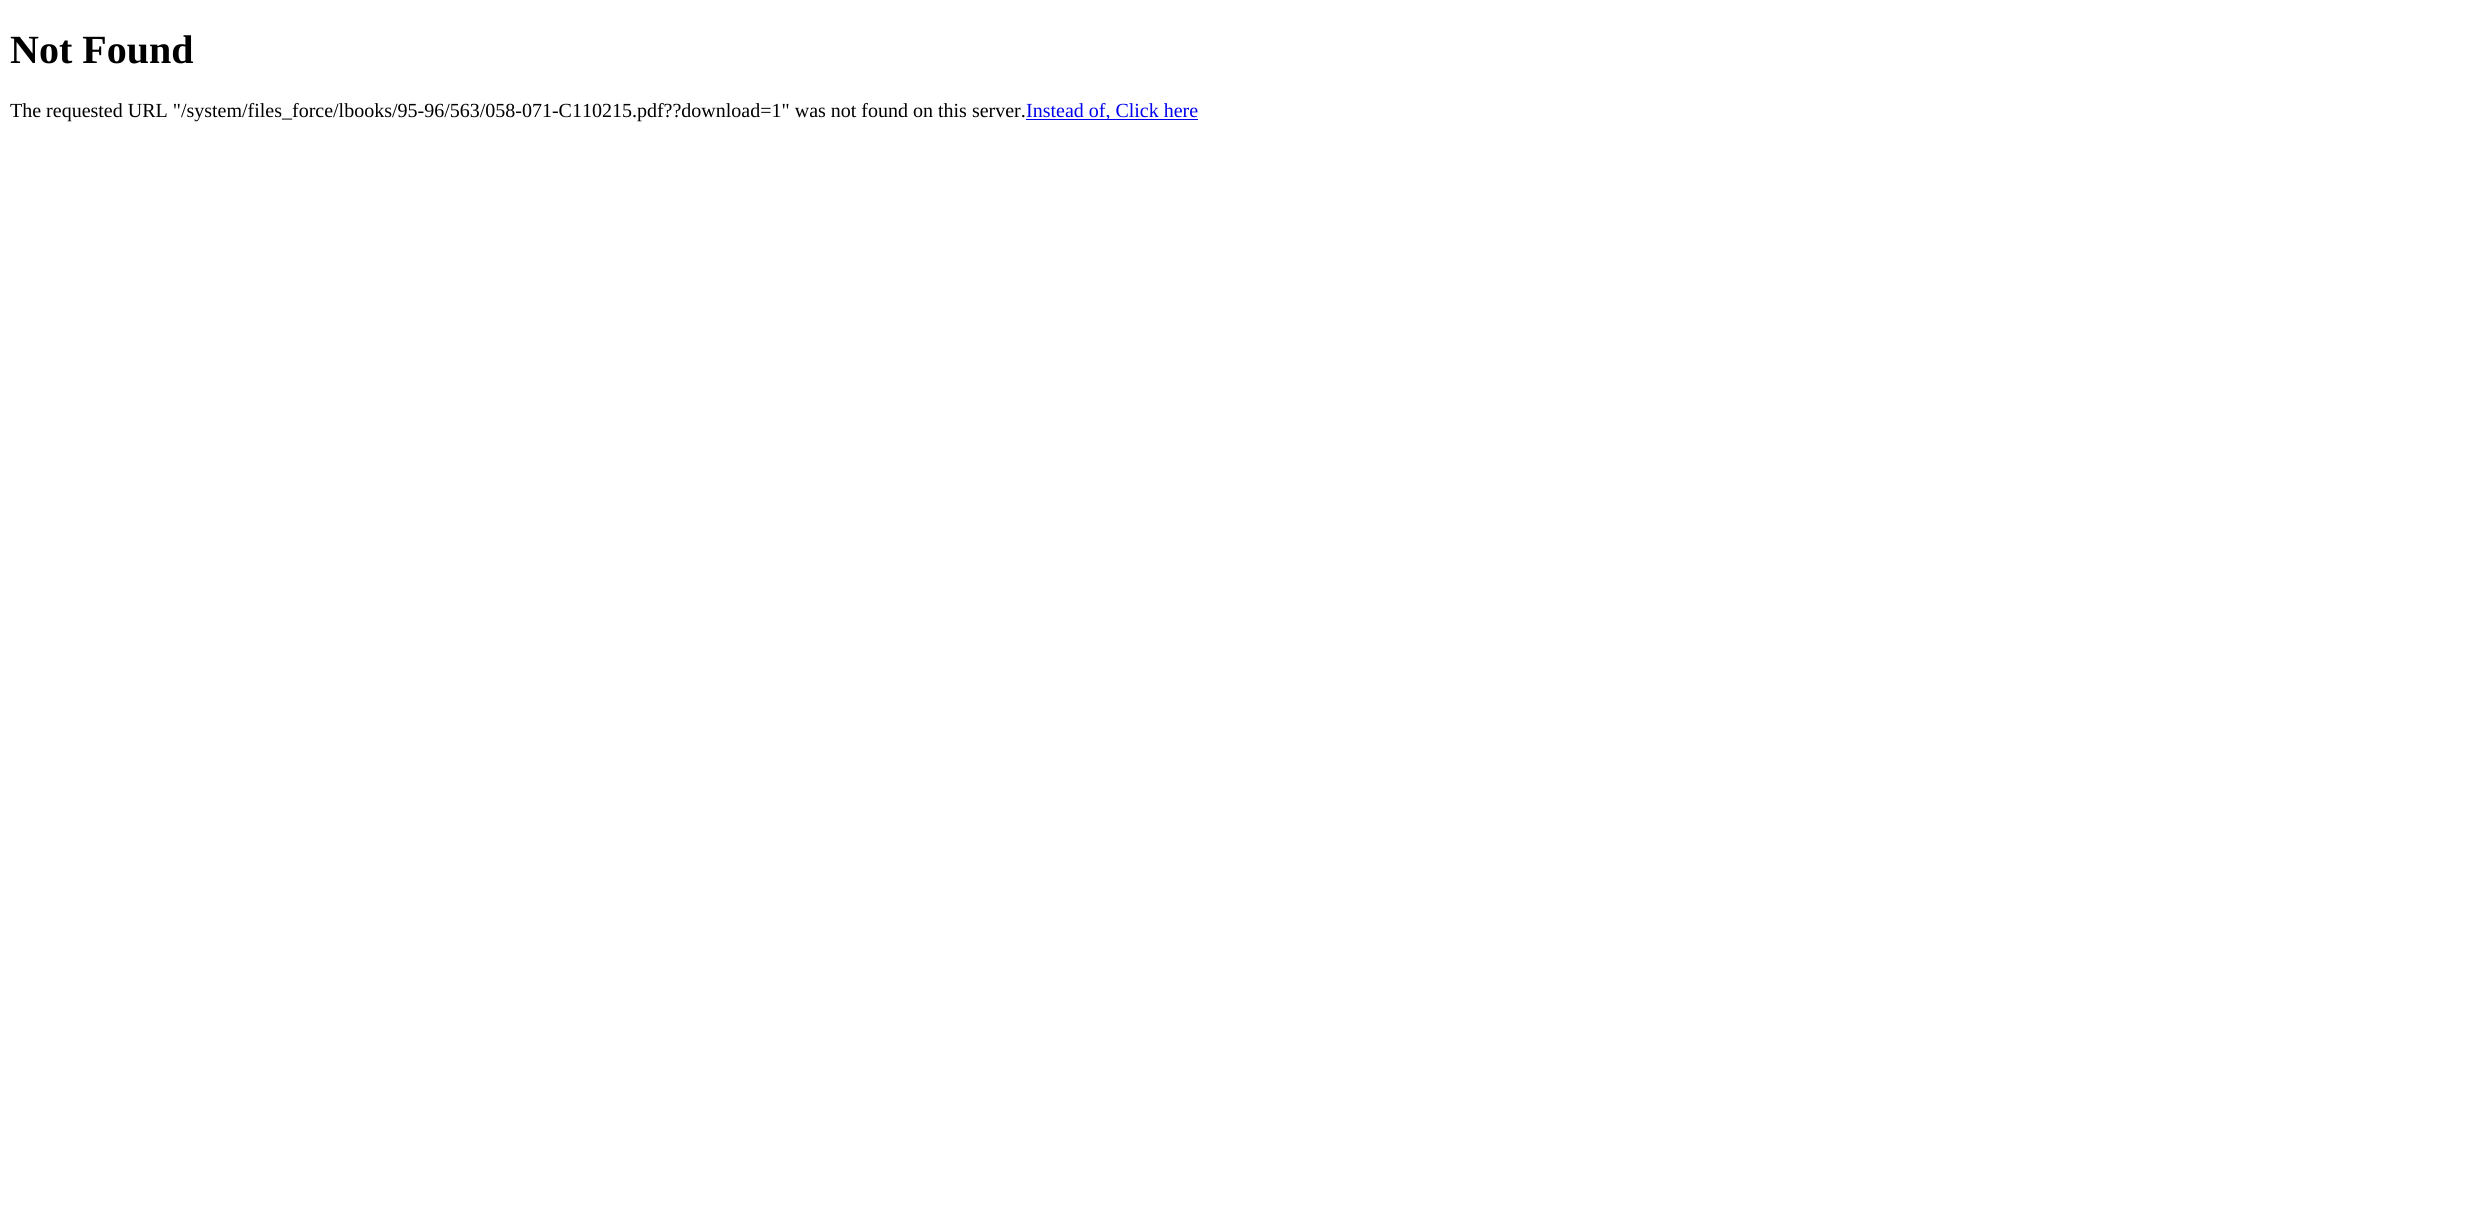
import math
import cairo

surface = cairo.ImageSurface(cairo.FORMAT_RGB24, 2469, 1207)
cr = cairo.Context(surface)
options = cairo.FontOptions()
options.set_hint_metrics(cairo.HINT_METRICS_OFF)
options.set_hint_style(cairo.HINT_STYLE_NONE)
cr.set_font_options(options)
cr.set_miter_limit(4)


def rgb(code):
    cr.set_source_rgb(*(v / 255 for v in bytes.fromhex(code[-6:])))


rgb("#ffffff")
cr.paint()
rgb("#0000ee")
cr.rectangle(1026, 119, 172, 1)
cr.fill()
cr.select_font_face("Liberation Serif", cairo.FONT_SLANT_NORMAL, cairo.FONT_WEIGHT_BOLD)
cr.set_font_size(40)
rgb("#000000")
cr.move_to(10, 63)
cr.show_text("Not Found")
cr.select_font_face("Liberation Serif")
cr.set_font_size(20)
cr.move_to(10, 117)
cr.show_text("The requested URL \"/system/files_force/lbooks/95-96/563/058-071-C110215.pdf??download=1\" was not found on this server.")
rgb("#0000ee")
cr.move_to(1026, 117)
cr.show_text("Instead of, Click here")
surface.write_to_png("page.png")
